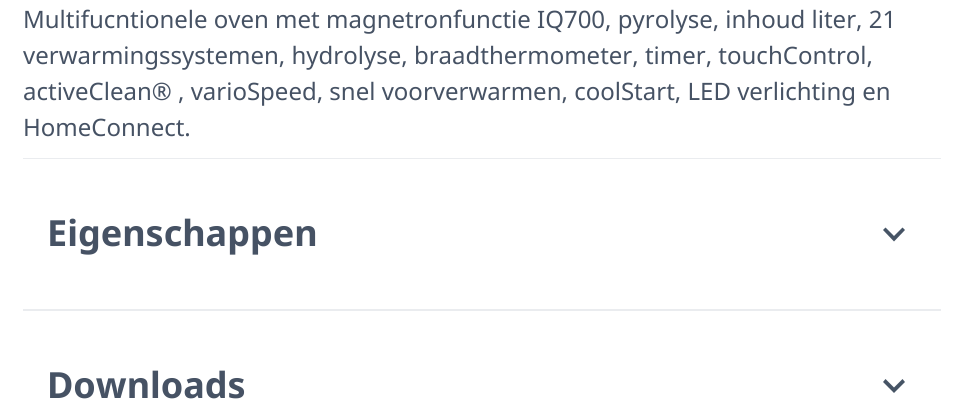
import math
import cairo

surface = cairo.ImageSurface(cairo.FORMAT_RGB24, 963, 402)
cr = cairo.Context(surface)
options = cairo.FontOptions()
options.set_hint_metrics(cairo.HINT_METRICS_OFF)
options.set_hint_style(cairo.HINT_STYLE_NONE)
cr.set_font_options(options)
cr.set_miter_limit(4)


def rgb(code):
    cr.set_source_rgb(*(v / 255 for v in bytes.fromhex(code[-6:])))


rgb("#ffffff")
cr.paint()
rgb("#eaecef")
cr.rectangle(23, 158, 918, 1)
cr.fill()
cr.rectangle(23, 309, 918, 2)
cr.fill()
rgb("#465465")
cr.new_path()
cr.move_to(885.5, 227.5)
cr.line_to(894, 236)
cr.line_to(902.5, 227.5)
cr.line_to(905, 230)
cr.line_to(894, 241.5)
cr.line_to(883, 230)
cr.close_path()
cr.fill()
cr.new_path()
cr.move_to(885.5, 379)
cr.line_to(894, 387.5)
cr.line_to(902.5, 379)
cr.line_to(905, 382)
cr.line_to(894, 393)
cr.line_to(883, 382)
cr.close_path()
cr.fill()
cr.select_font_face("Noto Sans")
cr.set_font_size(24)
rgb("#465264")
for x, y, s in [
    (23, 28, "Multifucntionele oven met magnetronfunctie IQ700, pyrolyse, inhoud liter, 21"),
    (23, 64, "verwarmingssystemen, hydrolyse, braadthermometer, timer, touchControl,"),
    (23, 100, "activeClean® , varioSpeed, snel voorverwarmen, coolStart, LED verlichting en"),
    (23, 136, "HomeConnect."),
]:
    cr.move_to(x, y)
    cr.show_text(s)
cr.select_font_face("Noto Sans", cairo.FONT_SLANT_NORMAL, cairo.FONT_WEIGHT_BOLD)
cr.set_font_size(36)
cr.move_to(47, 246)
cr.show_text("Eigenschappen")
cr.move_to(47, 398)
cr.show_text("Downloads")
surface.write_to_png("page.png")
